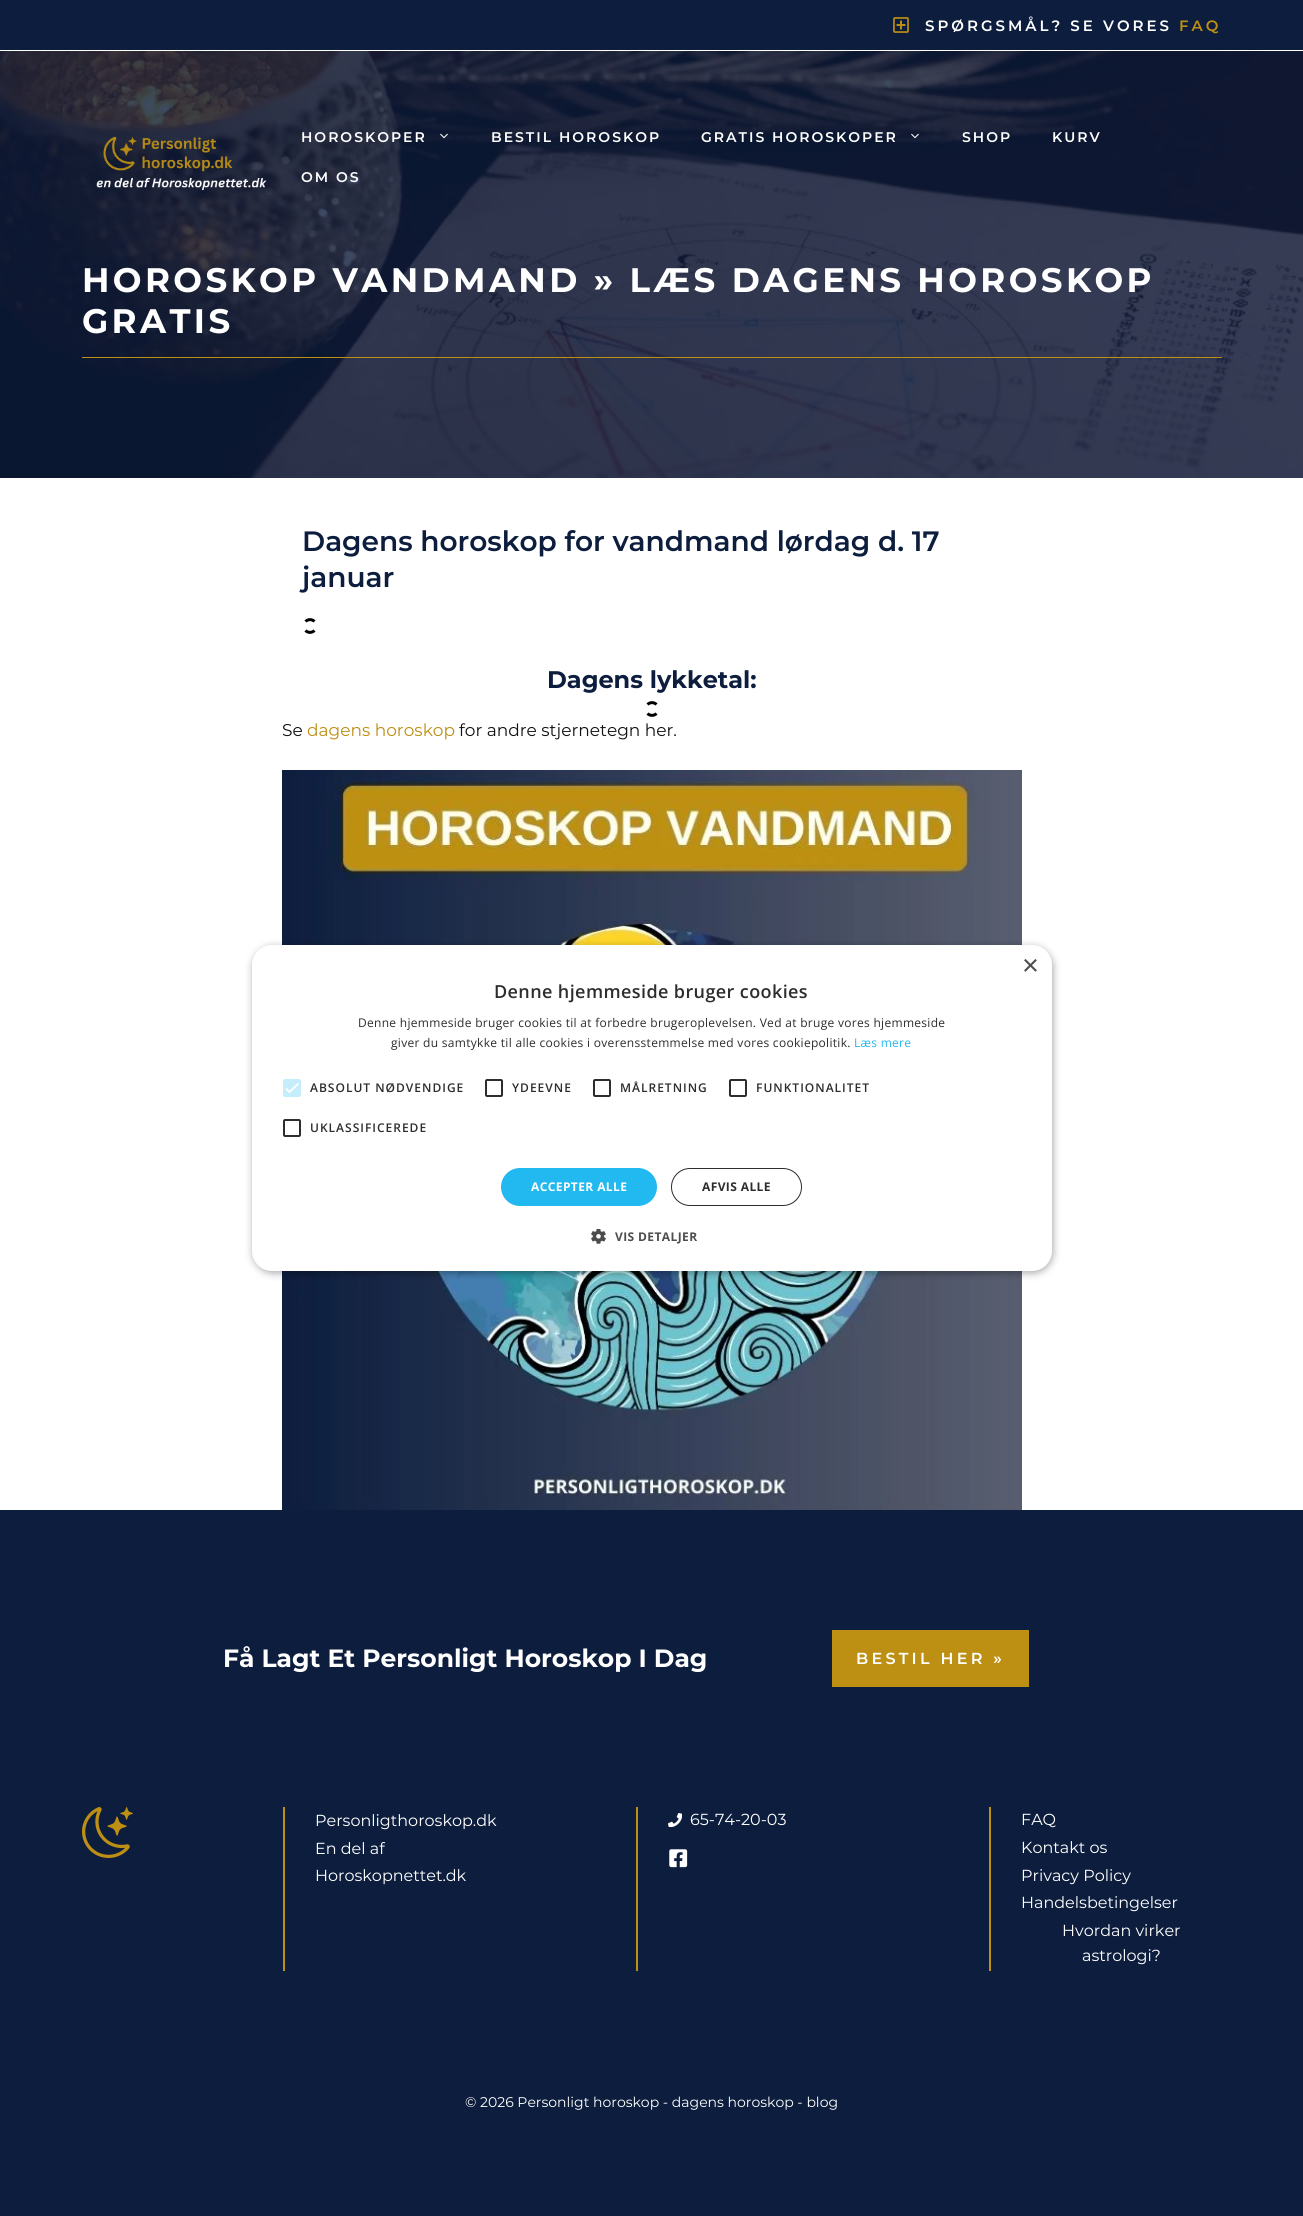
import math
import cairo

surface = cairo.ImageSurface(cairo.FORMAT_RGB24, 1303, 2216)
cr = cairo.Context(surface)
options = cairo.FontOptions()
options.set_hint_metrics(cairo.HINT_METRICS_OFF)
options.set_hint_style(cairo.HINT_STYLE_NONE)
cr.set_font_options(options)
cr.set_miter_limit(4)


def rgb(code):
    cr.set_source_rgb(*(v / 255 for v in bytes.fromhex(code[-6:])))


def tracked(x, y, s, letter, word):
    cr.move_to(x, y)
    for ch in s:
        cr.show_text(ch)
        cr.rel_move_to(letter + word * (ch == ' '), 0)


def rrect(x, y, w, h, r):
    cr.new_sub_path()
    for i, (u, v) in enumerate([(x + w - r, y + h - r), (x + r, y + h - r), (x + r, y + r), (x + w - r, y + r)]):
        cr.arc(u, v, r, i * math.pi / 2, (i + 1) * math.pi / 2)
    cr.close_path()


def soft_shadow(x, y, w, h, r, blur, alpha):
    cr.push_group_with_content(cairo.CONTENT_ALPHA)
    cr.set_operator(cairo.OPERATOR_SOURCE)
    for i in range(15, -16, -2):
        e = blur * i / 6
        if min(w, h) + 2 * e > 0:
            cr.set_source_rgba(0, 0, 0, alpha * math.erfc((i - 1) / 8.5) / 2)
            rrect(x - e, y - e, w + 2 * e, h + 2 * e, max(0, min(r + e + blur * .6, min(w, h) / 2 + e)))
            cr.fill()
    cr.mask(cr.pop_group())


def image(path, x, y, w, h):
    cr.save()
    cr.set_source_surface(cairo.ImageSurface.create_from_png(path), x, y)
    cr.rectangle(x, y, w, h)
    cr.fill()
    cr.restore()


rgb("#ffffff")
cr.paint()
rgb("#0c1d3d")
cr.rectangle(0, 0, 1303, 50)
cr.fill()
image("img/1.png", 893, 17, 16, 16)
cr.rectangle(0, 51, 1303, 427)
cr.fill()
image("img/5.png", 0, 51, 1303, 427)
image("img/2.png", 96, 136, 171, 54)
image("img/3.png", 440, 133, 8, 6)
image("img/4.png", 911, 133, 8, 6)
rgb("#bd8f13")
cr.rectangle(82, 357, 1140, 1)
cr.fill()
cr.new_path()
cr.move_to(305.5, 621.5)
cr.curve_to(308, 619, 312, 619, 314.5, 621.5)
cr.move_to(314.5, 630.5)
cr.curve_to(312, 633, 308, 633, 305.5, 630.5)
rgb("#000000")
cr.set_line_width(3)
cr.stroke()
cr.new_path()
cr.move_to(647.5, 704.5)
cr.curve_to(650, 702, 654, 702, 656.5, 704.5)
cr.move_to(656.5, 713.5)
cr.curve_to(654, 716, 650, 716, 647.5, 713.5)
cr.stroke()
image("img/6.png", 282, 770, 740, 740)
rgb("#000000")
soft_shadow(253, 947, 800, 326, 20, 4, 0.35)
rgb("#ffffff")
rrect(252, 945, 800, 326, 20)
cr.fill()
rgb("#c6edfb")
rrect(283, 1079, 18, 18, 2)
cr.fill()
cr.new_path()
cr.move_to(286, 1088.5)
cr.line_to(289.5, 1092)
cr.line_to(298.5, 1083.5)
rgb("#ffffff")
cr.set_line_width(1.8)
cr.stroke()
rrect(486, 1080, 16, 16, 1)
rgb("#2d2d2d")
cr.set_line_width(2)
cr.stroke()
rrect(594, 1080, 16, 16, 1)
cr.stroke()
rrect(730, 1080, 16, 16, 1)
cr.stroke()
rrect(284, 1120, 16, 16, 1)
cr.stroke()
rgb("#22b8f0")
rrect(501, 1168, 156, 38, 19)
cr.fill()
rrect(671.5, 1168.5, 130, 37, 18.5)
rgb("#2d2d2d")
cr.set_line_width(1)
cr.stroke()
image("img/7.png", 591, 1229, 15, 15)
rgb("#0c1d3d")
cr.rectangle(0, 1510, 1303, 706)
cr.fill()
rgb("#bd8f13")
cr.rectangle(832, 1630, 197, 57)
cr.fill()
image("img/8.png", 82, 1807, 51, 51)
cr.rectangle(283, 1807, 2, 164)
cr.fill()
cr.rectangle(636, 1807, 2, 164)
cr.fill()
image("img/9.png", 668, 1813, 14, 14)
image("img/10.png", 669, 1849, 19, 19)
cr.rectangle(989, 1807, 2, 164)
cr.fill()
cr.select_font_face("Montserrat SemiBold")
cr.set_font_size(15)
rgb("#ffffff")
tracked(925, 31, "SPØRGSMÅL? SE VORES", 3, 0)
rgb("#bd8f13")
tracked(1179, 31, "FAQ", 3, 0)
cr.set_font_size(14)
rgb("#ffffff")
for x, y, s in [
    (301, 142, "HOROSKOPER"),
    (491, 142, "BESTIL HOROSKOP"),
    (701, 142, "GRATIS HOROSKOPER"),
    (962, 142, "SHOP"),
    (1052, 142, "KURV"),
    (301, 182, "OM OS"),
]:
    tracked(x, y, s, 2, 0)
cr.select_font_face("Montserrat", cairo.FONT_SLANT_NORMAL, cairo.FONT_WEIGHT_BOLD)
cr.set_font_size(34)
tracked(82, 292, "HOROSKOP VANDMAND » LÆS DAGENS HOROSKOP", 3.4, 0)
tracked(82, 333, "GRATIS", 3.4, 0)
cr.select_font_face("Montserrat SemiBold")
cr.set_font_size(28)
rgb("#0c1d3d")
cr.move_to(302, 551)
cr.show_text("Dagens horoskop for vandmand lørdag d. 17")
cr.move_to(302, 587)
cr.show_text("januar")
cr.select_font_face("Montserrat", cairo.FONT_SLANT_NORMAL, cairo.FONT_WEIGHT_BOLD)
cr.set_font_size(24)
cr.move_to(547, 688)
cr.show_text("Dagens lykketal:")
cr.select_font_face("Montserrat")
cr.set_font_size(17)
rgb("#121212")
cr.move_to(282, 736)
cr.show_text("Se")
rgb("#bd8f13")
cr.move_to(307, 736)
cr.show_text("dagens horoskop")
rgb("#121212")
cr.move_to(459, 736)
cr.show_text("for andre stjernetegn her.")
cr.select_font_face("Liberation Sans")
cr.set_font_size(29)
rgb("#4d4d4d")
cr.move_to(1022, 975)
cr.show_text("×")
cr.select_font_face("Open Sans SemiBold")
cr.set_font_size(18)
rgb("#2d2d2d")
tracked(494, 998, "Denne hjemmeside bruger cookies", 0.4, 0)
cr.select_font_face("Open Sans")
cr.set_font_size(12)
tracked(358, 1027, "Denne hjemmeside bruger cookies til at forbedre brugeroplevelsen. Ved at bruge vores hjemmeside", 0.3, 0)
tracked(391, 1047, "giver du samtykke til alle cookies i overensstemmelse med vores cookiepolitik.", 0.3, 0)
rgb("#22b8f0")
tracked(854, 1047, "Læs mere", 0.3, 0)
cr.select_font_face("Open Sans SemiBold")
rgb("#2d2d2d")
for x, y, s in [
    (310, 1092, "ABSOLUT NØDVENDIGE"),
    (512, 1092, "YDEEVNE"),
    (620, 1092, "MÅLRETNING"),
    (756, 1092, "FUNKTIONALITET"),
    (310, 1132, "UKLASSIFICEREDE"),
]:
    tracked(x, y, s, 1, 0)
cr.select_font_face("Open Sans", cairo.FONT_SLANT_NORMAL, cairo.FONT_WEIGHT_BOLD)
rgb("#ffffff")
tracked(531, 1191, "ACCEPTER ALLE", 0.4, 0)
rgb("#2d2d2d")
tracked(702, 1191, "AFVIS ALLE", 0.4, 0)
rgb("#4d4d4d")
tracked(615, 1241, "VIS DETALJER", 0.4, 0)
cr.select_font_face("Montserrat", cairo.FONT_SLANT_NORMAL, cairo.FONT_WEIGHT_BOLD)
cr.set_font_size(25)
rgb("#ffffff")
cr.move_to(223, 1667)
cr.show_text("Få Lagt Et Personligt Horoskop I Dag")
cr.select_font_face("Montserrat SemiBold")
cr.set_font_size(16)
tracked(856, 1664, "BESTIL HER »", 3.25, 0)
cr.select_font_face("Montserrat")
for x, y, s in [
    (315, 1826, "Personligthoroskop.dk"),
    (315, 1854, "En del af"),
    (315, 1881, "Horoskopnettet.dk"),
    (690, 1825, "65-74-20-03"),
    (1021, 1825, "FAQ"),
    (1021, 1853, "Kontakt os"),
    (1021, 1881, "Privacy Policy"),
    (1021, 1908, "Handelsbetingelser"),
    (1062, 1936, "Hvordan virker"),
    (1082, 1961, "astrologi?"),
]:
    cr.move_to(x, y)
    cr.show_text(s)
cr.set_font_size(14)
cr.move_to(465, 2107)
cr.show_text("© 2026 Personligt horoskop - dagens horoskop - blog")
surface.write_to_png("page.png")
